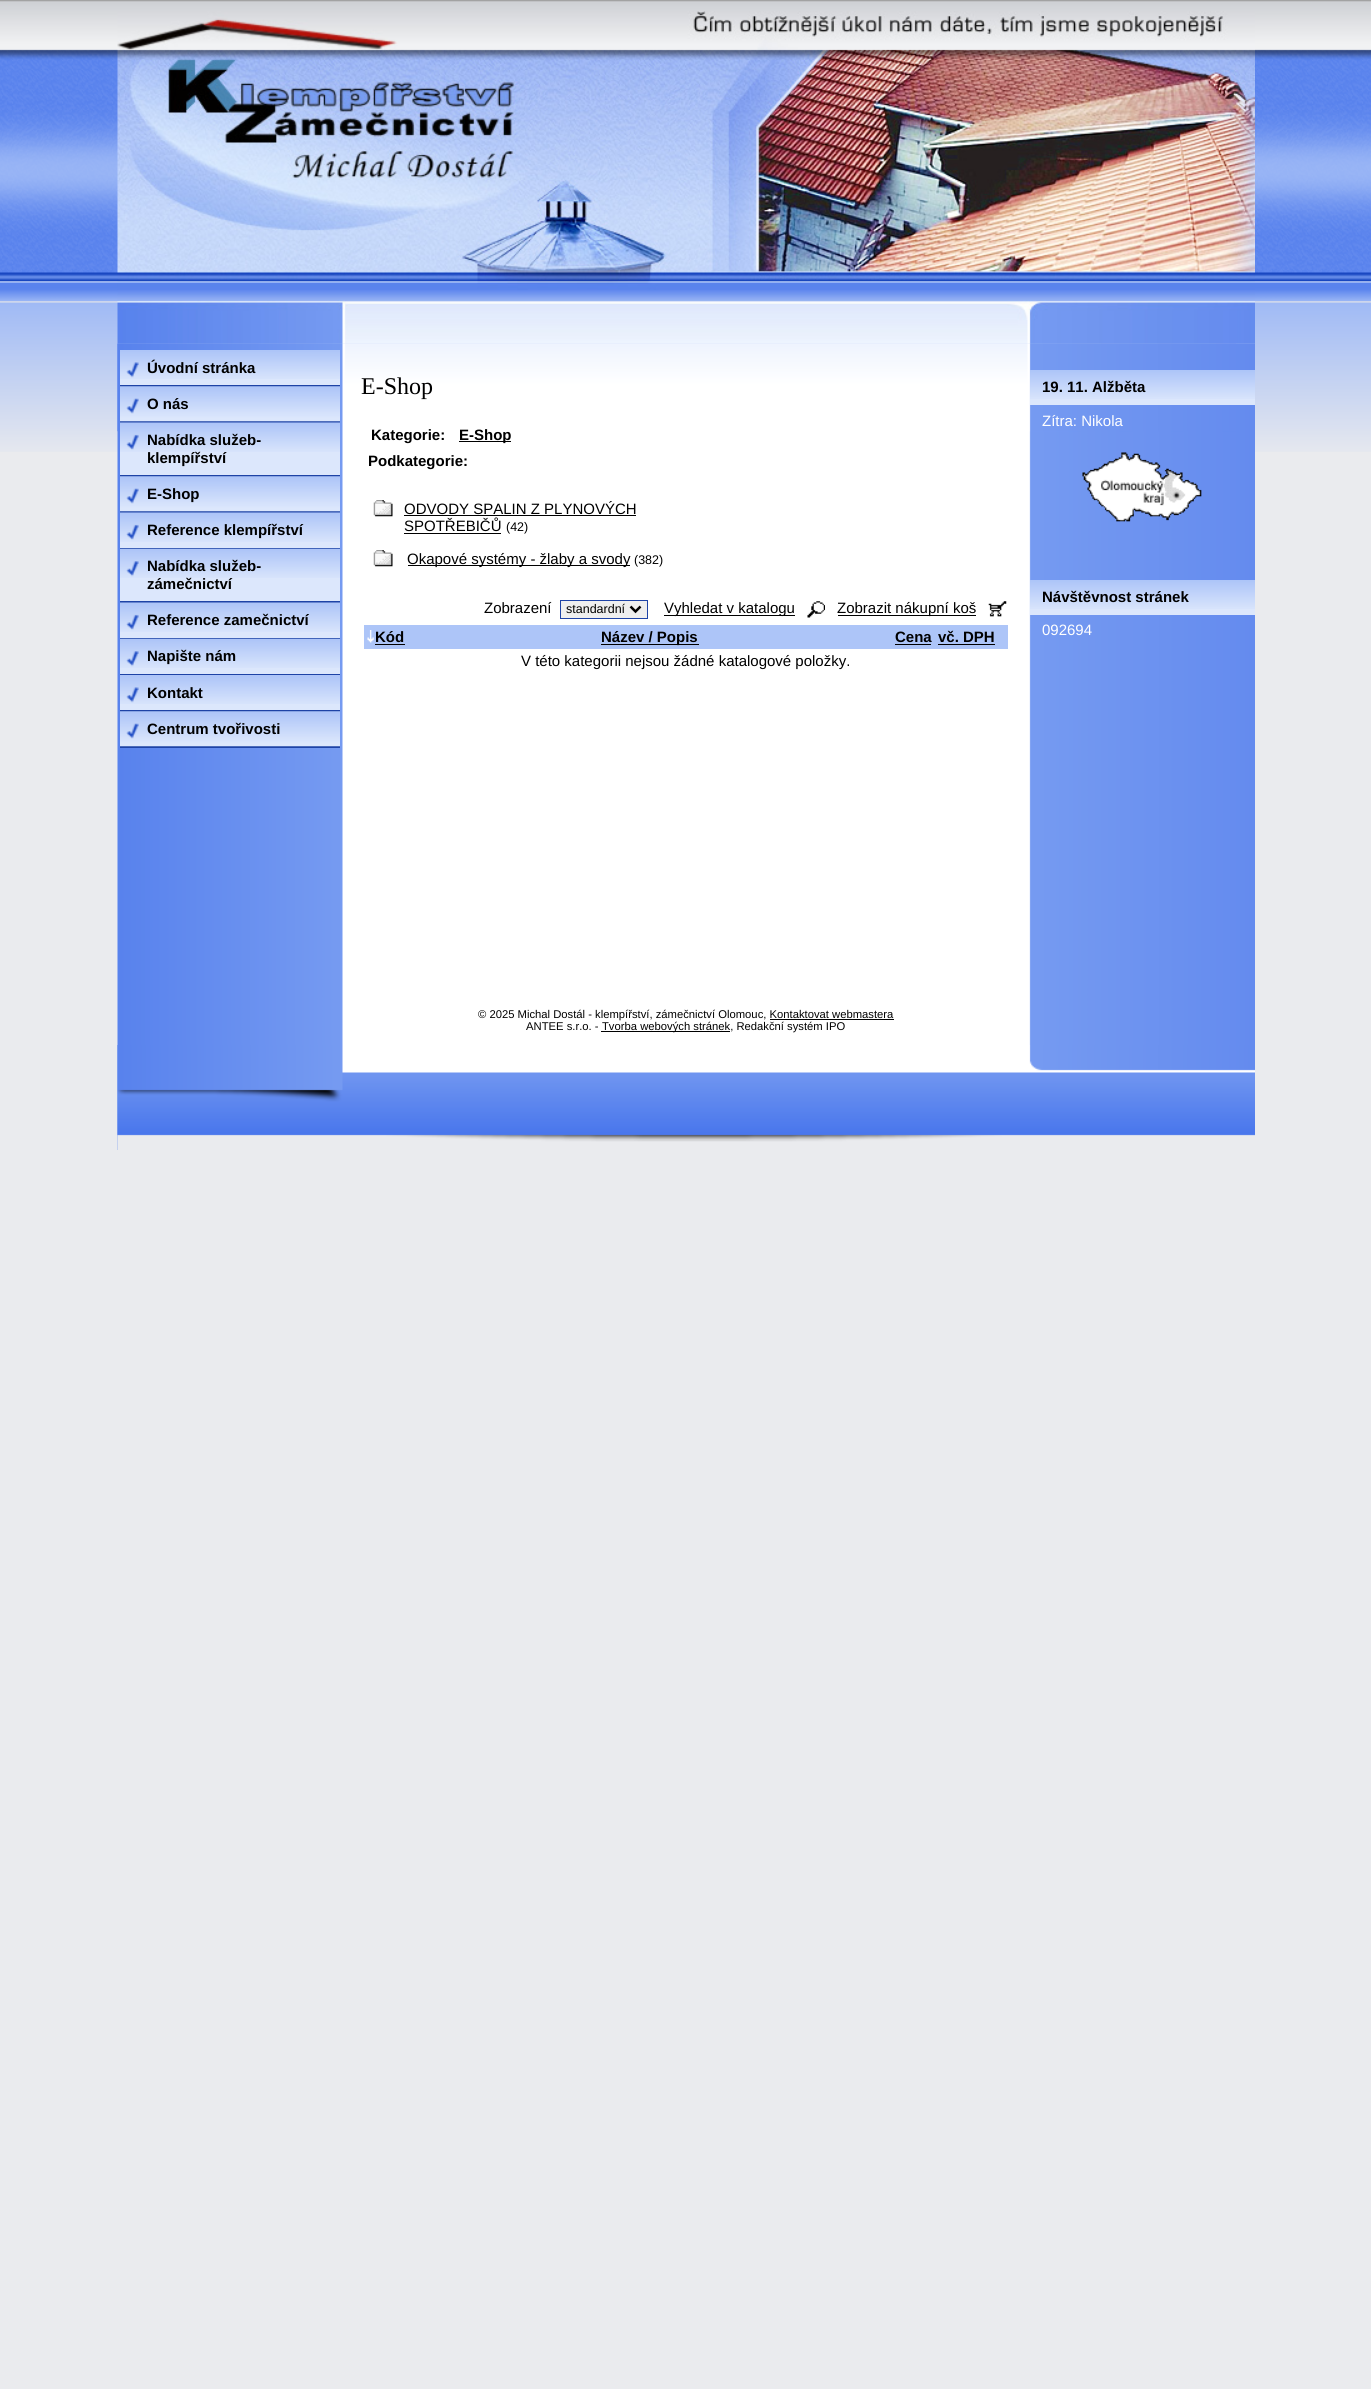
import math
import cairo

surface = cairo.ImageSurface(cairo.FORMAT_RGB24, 1371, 2389)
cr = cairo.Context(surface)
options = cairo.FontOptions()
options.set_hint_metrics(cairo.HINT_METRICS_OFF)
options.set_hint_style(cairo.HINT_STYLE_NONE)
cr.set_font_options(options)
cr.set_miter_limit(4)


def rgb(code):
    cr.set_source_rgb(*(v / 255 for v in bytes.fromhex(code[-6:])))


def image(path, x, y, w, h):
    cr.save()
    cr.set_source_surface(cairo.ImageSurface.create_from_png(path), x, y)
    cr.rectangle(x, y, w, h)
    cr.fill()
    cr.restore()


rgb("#eaebee")
cr.paint()
image("img/1.png", 0, 0, 1371, 452)
image("img/2.png", 117, 11, 1138, 333)
image("img/3.png", 117, 343, 1138, 807)
image("img/4.png", 117, 343, 1119, 89)
rgb("#1e43a6")
cr.rectangle(120, 385, 220, 363)
cr.fill()
rgb("#dce7fc")
cr.rectangle(120, 379, 220, 6)
cr.fill()
image("img/5.png", 120, 350, 220, 29)
image("img/6.png", 120, 386, 220, 36)
cr.rectangle(120, 452, 220, 23)
cr.fill()
image("img/7.png", 120, 422, 220, 30)
image("img/6.png", 120, 476, 220, 36)
cr.rectangle(120, 542, 220, 6)
cr.fill()
image("img/8.png", 120, 512, 220, 30)
cr.rectangle(120, 578, 220, 23)
cr.fill()
image("img/9.png", 120, 548, 220, 30)
cr.rectangle(120, 632, 220, 6)
cr.fill()
image("img/7.png", 120, 602, 220, 30)
cr.rectangle(120, 668, 220, 6)
cr.fill()
image("img/9.png", 120, 638, 220, 30)
cr.rectangle(120, 704, 220, 6)
cr.fill()
image("img/5.png", 120, 675, 220, 29)
image("img/6.png", 120, 711, 220, 36)
rgb("#000000")
cr.rectangle(459, 441, 52, 1)
cr.fill()
image("img/10.png", 373, 500, 20, 17)
cr.rectangle(404, 515, 232, 1)
cr.fill()
cr.rectangle(404, 533, 97, 1)
cr.fill()
image("img/10.png", 373, 550, 20, 17)
cr.rectangle(408, 565, 222, 1)
cr.fill()
rgb("#efefef")
cr.rectangle(560.5, 600.5, 87, 18)
cr.fill_preserve()
rgb("#1e43a6")
cr.set_line_width(1)
cr.stroke()
cr.new_path()
cr.move_to(630.5, 606.5)
cr.line_to(635.5, 611.5)
cr.line_to(640.5, 606.5)
rgb("#000000")
cr.set_line_width(2.5)
cr.stroke()
cr.rectangle(664, 615, 131, 1)
cr.fill()
image("img/11.png", 807, 601, 18, 17)
cr.rectangle(838, 615, 138, 1)
cr.fill()
image("img/12.png", 988, 601, 19, 16)
rgb("#adc5f8")
cr.rectangle(364, 625, 644, 24)
cr.fill()
image("img/13.png", 367, 630, 7, 13)
for x, y, w, h, color in [
    (375, 644, 30, 1, "#000000"),
    (601, 644, 98, 1, "#000000"),
    (895, 644, 36, 1, "#000000"),
    (938, 644, 57, 1, "#000000"),
    (1030, 399, 225, 6, "#dce7fc"),
]:
    rgb(color)
    cr.rectangle(x, y, w, h)
    cr.fill()
image("img/14.png", 1030, 370, 225, 29)
image("img/15.png", 1082, 452, 120, 70)
cr.rectangle(1030, 609, 225, 6)
cr.fill()
image("img/14.png", 1030, 580, 225, 29)
rgb("#000000")
cr.rectangle(770, 1019, 124, 1)
cr.fill()
cr.rectangle(601, 1031, 129, 1)
cr.fill()
image("img/16.png", 117, 1045, 1138, 105)
cr.select_font_face("Liberation Sans", cairo.FONT_SLANT_NORMAL, cairo.FONT_WEIGHT_BOLD)
cr.set_font_size(15)
for x, y, s in [
    (147, 373, "Úvodní stránka"),
    (147, 409, "O nás"),
    (147, 445, "Nabídka služeb-"),
    (147, 463, "klempířství"),
    (147, 499, "E-Shop"),
    (147, 535, "Reference klempířství"),
    (147, 571, "Nabídka služeb-"),
    (147, 589, "zámečnictví"),
    (147, 625, "Reference zamečnictví"),
    (147, 661, "Napište nám"),
    (147, 698, "Kontakt"),
    (147, 734, "Centrum tvořivosti"),
]:
    cr.move_to(x, y)
    cr.show_text(s)
cr.select_font_face("Liberation Serif")
cr.set_font_size(24)
cr.move_to(361, 394)
cr.show_text("E-Shop")
cr.select_font_face("Liberation Sans", cairo.FONT_SLANT_NORMAL, cairo.FONT_WEIGHT_BOLD)
cr.set_font_size(15)
for x, y, s in [
    (371, 440, "Kategorie:"),
    (459, 440, "E-Shop"),
    (368, 466, "Podkategorie:"),
]:
    cr.move_to(x, y)
    cr.show_text(s)
cr.select_font_face("Liberation Sans")
cr.move_to(404, 514)
cr.show_text("ODVODY SPALIN Z PLYNOVÝCH")
cr.move_to(404, 531)
cr.show_text("SPOTŘEBIČŮ")
cr.set_font_size(12.5)
cr.move_to(506, 531)
cr.show_text("(42)")
cr.set_font_size(15)
cr.move_to(407, 564)
cr.show_text("Okapové systémy - žlaby a svody")
cr.set_font_size(12.5)
cr.move_to(634, 564)
cr.show_text("(382)")
cr.set_font_size(15)
cr.move_to(484, 613)
cr.show_text("Zobrazení")
cr.set_font_size(12.5)
cr.move_to(566, 613)
cr.show_text("standardní")
cr.set_font_size(15)
cr.move_to(664, 613)
cr.show_text("Vyhledat v katalogu")
cr.move_to(837, 613)
cr.show_text("Zobrazit nákupní koš")
cr.select_font_face("Liberation Sans", cairo.FONT_SLANT_NORMAL, cairo.FONT_WEIGHT_BOLD)
for x, y, s in [
    (375, 642, "Kód"),
    (601, 642, "Název / Popis"),
    (895, 642, "Cena"),
    (938, 642, "vč. DPH"),
]:
    cr.move_to(x, y)
    cr.show_text(s)
cr.select_font_face("Liberation Sans")
cr.move_to(521, 666)
cr.show_text("V této kategorii nejsou žádné katalogové položky.")
cr.select_font_face("Liberation Sans", cairo.FONT_SLANT_NORMAL, cairo.FONT_WEIGHT_BOLD)
cr.move_to(1042, 392)
cr.show_text("19. 11. Alžběta")
cr.select_font_face("Liberation Sans")
rgb("#ffffff")
cr.move_to(1042, 426)
cr.show_text("Zítra: Nikola")
cr.select_font_face("Liberation Sans", cairo.FONT_SLANT_NORMAL, cairo.FONT_WEIGHT_BOLD)
rgb("#000000")
cr.move_to(1042, 602)
cr.show_text("Návštěvnost stránek")
cr.select_font_face("Liberation Sans")
rgb("#ffffff")
cr.move_to(1042, 635)
cr.show_text("092694")
cr.set_font_size(11.25)
rgb("#000000")
for x, y, s in [
    (478, 1018, "© 2025 Michal Dostál - klempířství, zámečnictví Olomouc, Kontaktovat webmastera"),
    (526, 1030, "ANTEE s.r.o. -"),
    (602, 1030, "Tvorba webových stránek, Redakční systém IPO"),
]:
    cr.move_to(x, y)
    cr.show_text(s)
surface.write_to_png("page.png")
